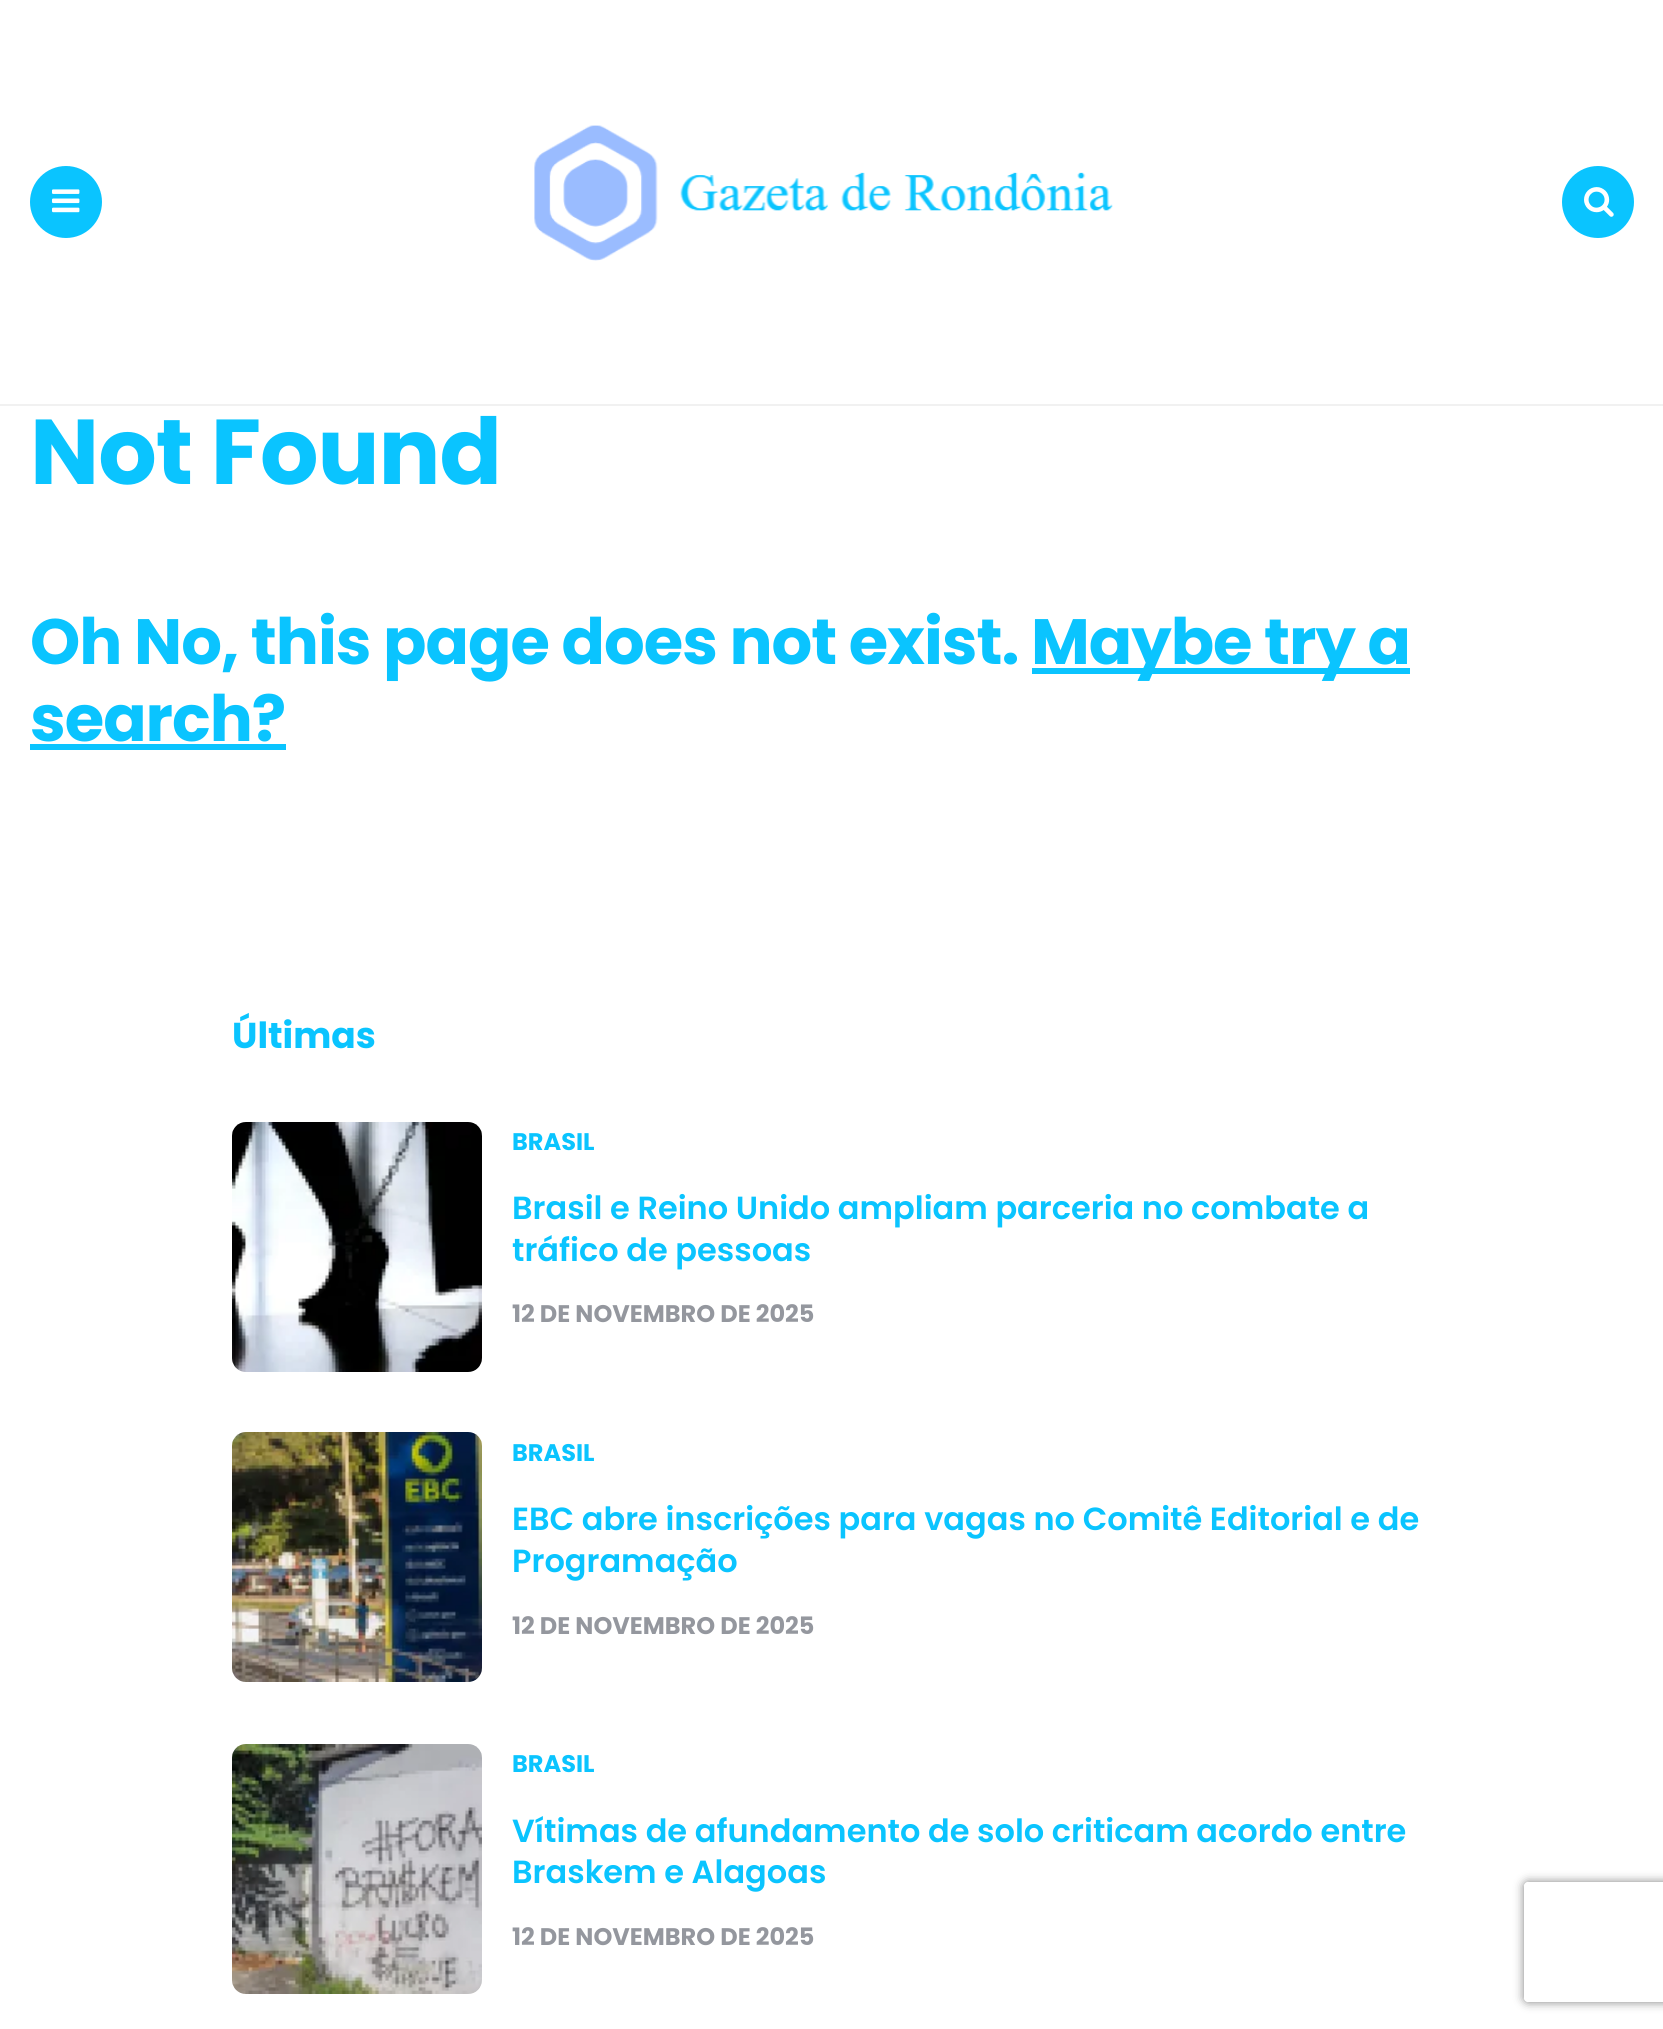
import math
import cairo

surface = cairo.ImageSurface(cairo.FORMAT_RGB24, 1663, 2029)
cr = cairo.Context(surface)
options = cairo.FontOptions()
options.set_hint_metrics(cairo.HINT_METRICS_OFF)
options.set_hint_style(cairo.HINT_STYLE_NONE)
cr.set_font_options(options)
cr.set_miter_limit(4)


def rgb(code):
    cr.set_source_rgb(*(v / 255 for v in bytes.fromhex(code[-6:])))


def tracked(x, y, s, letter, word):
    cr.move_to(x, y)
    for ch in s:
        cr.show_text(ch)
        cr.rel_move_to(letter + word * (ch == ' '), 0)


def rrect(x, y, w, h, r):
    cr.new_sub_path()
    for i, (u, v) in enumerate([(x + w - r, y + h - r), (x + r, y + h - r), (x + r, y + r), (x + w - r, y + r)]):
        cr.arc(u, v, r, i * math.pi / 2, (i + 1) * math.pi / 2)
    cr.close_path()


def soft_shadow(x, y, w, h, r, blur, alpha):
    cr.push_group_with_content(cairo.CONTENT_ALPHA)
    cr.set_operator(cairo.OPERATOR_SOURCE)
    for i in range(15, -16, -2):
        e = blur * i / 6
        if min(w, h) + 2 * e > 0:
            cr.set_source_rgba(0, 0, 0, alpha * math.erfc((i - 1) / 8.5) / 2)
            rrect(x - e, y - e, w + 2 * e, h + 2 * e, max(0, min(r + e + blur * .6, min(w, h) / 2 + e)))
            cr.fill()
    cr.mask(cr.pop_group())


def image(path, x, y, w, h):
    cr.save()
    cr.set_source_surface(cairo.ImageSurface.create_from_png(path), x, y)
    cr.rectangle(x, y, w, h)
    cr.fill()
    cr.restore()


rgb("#ffffff")
cr.paint()
rgb("#f1f1f1")
cr.rectangle(0, 404, 1663, 2)
cr.fill()
rgb("#0ac4ff")
cr.arc(66, 202, 36, 0, 2 * math.pi)
cr.fill()
image("img/1.png", 52, 189, 28, 24)
image("img/2.png", 534, 125, 579, 136)
cr.arc(1598, 202, 36, 0, 2 * math.pi)
cr.fill()
image("img/3.png", 1584, 187, 30, 30)
cr.rectangle(1032, 668, 378, 6)
cr.fill()
cr.rectangle(30, 744, 256, 6)
cr.fill()
image("img/4.png", 232, 1122, 250, 250)
image("img/5.png", 232, 1432, 250, 250)
image("img/6.png", 232, 1744, 250, 250)
cr.save()
cr.set_fill_rule(cairo.FILL_RULE_EVEN_ODD)
cr.new_path()
cr.move_to(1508, 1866)
cr.line_to(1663, 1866)
cr.line_to(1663, 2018)
cr.line_to(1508, 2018)
cr.close_path()
cr.move_to(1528, 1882)
cr.line_to(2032, 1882)
cr.curve_to(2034, 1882, 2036, 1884, 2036, 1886)
cr.line_to(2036, 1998)
cr.curve_to(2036, 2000, 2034, 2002, 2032, 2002)
cr.line_to(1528, 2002)
cr.curve_to(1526, 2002, 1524, 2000, 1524, 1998)
cr.line_to(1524, 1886)
cr.curve_to(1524, 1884, 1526, 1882, 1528, 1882)
cr.close_path()
cr.clip()
rgb("#808080")
soft_shadow(1524, 1882, 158, 120, 4, 5, 1)
cr.restore()
cr.select_font_face("Poppins", cairo.FONT_SLANT_NORMAL, cairo.FONT_WEIGHT_BOLD)
cr.set_font_size(92)
tracked(30, 484, "Not Found", -1, 0)
cr.set_font_size(64)
for x, y, s in [
    (30, 664, "Oh No, this page does not exist."),
    (1031, 664, "Maybe try a"),
    (30, 741, "search?"),
]:
    tracked(x, y, s, -1, 0)
cr.set_font_size(36)
cr.move_to(232, 1048)
cr.show_text("Últimas")
cr.set_font_size(24)
cr.move_to(512, 1150)
cr.show_text("BRASIL")
cr.select_font_face("Poppins SemiBold")
cr.set_font_size(32)
cr.move_to(512, 1219)
cr.show_text("Brasil e Reino Unido ampliam parceria no combate a")
cr.move_to(512, 1261)
cr.show_text("tráfico de pessoas")
cr.select_font_face("Poppins", cairo.FONT_SLANT_NORMAL, cairo.FONT_WEIGHT_BOLD)
cr.set_font_size(24)
rgb("#94979e")
cr.move_to(512, 1322)
cr.show_text("12 DE NOVEMBRO DE 2025")
rgb("#0ac4ff")
cr.move_to(512, 1461)
cr.show_text("BRASIL")
cr.select_font_face("Poppins SemiBold")
cr.set_font_size(32)
cr.move_to(512, 1530)
cr.show_text("EBC abre inscrições para vagas no Comitê Editorial e de")
cr.move_to(512, 1572)
cr.show_text("Programação")
cr.select_font_face("Poppins", cairo.FONT_SLANT_NORMAL, cairo.FONT_WEIGHT_BOLD)
cr.set_font_size(24)
rgb("#94979e")
cr.move_to(512, 1634)
cr.show_text("12 DE NOVEMBRO DE 2025")
rgb("#0ac4ff")
cr.move_to(512, 1772)
cr.show_text("BRASIL")
cr.select_font_face("Poppins SemiBold")
cr.set_font_size(32)
cr.move_to(512, 1842)
cr.show_text("Vítimas de afundamento de solo criticam acordo entre")
cr.move_to(512, 1883)
cr.show_text("Braskem e Alagoas")
cr.select_font_face("Poppins", cairo.FONT_SLANT_NORMAL, cairo.FONT_WEIGHT_BOLD)
cr.set_font_size(24)
rgb("#94979e")
cr.move_to(512, 1945)
cr.show_text("12 DE NOVEMBRO DE 2025")
surface.write_to_png("page.png")
